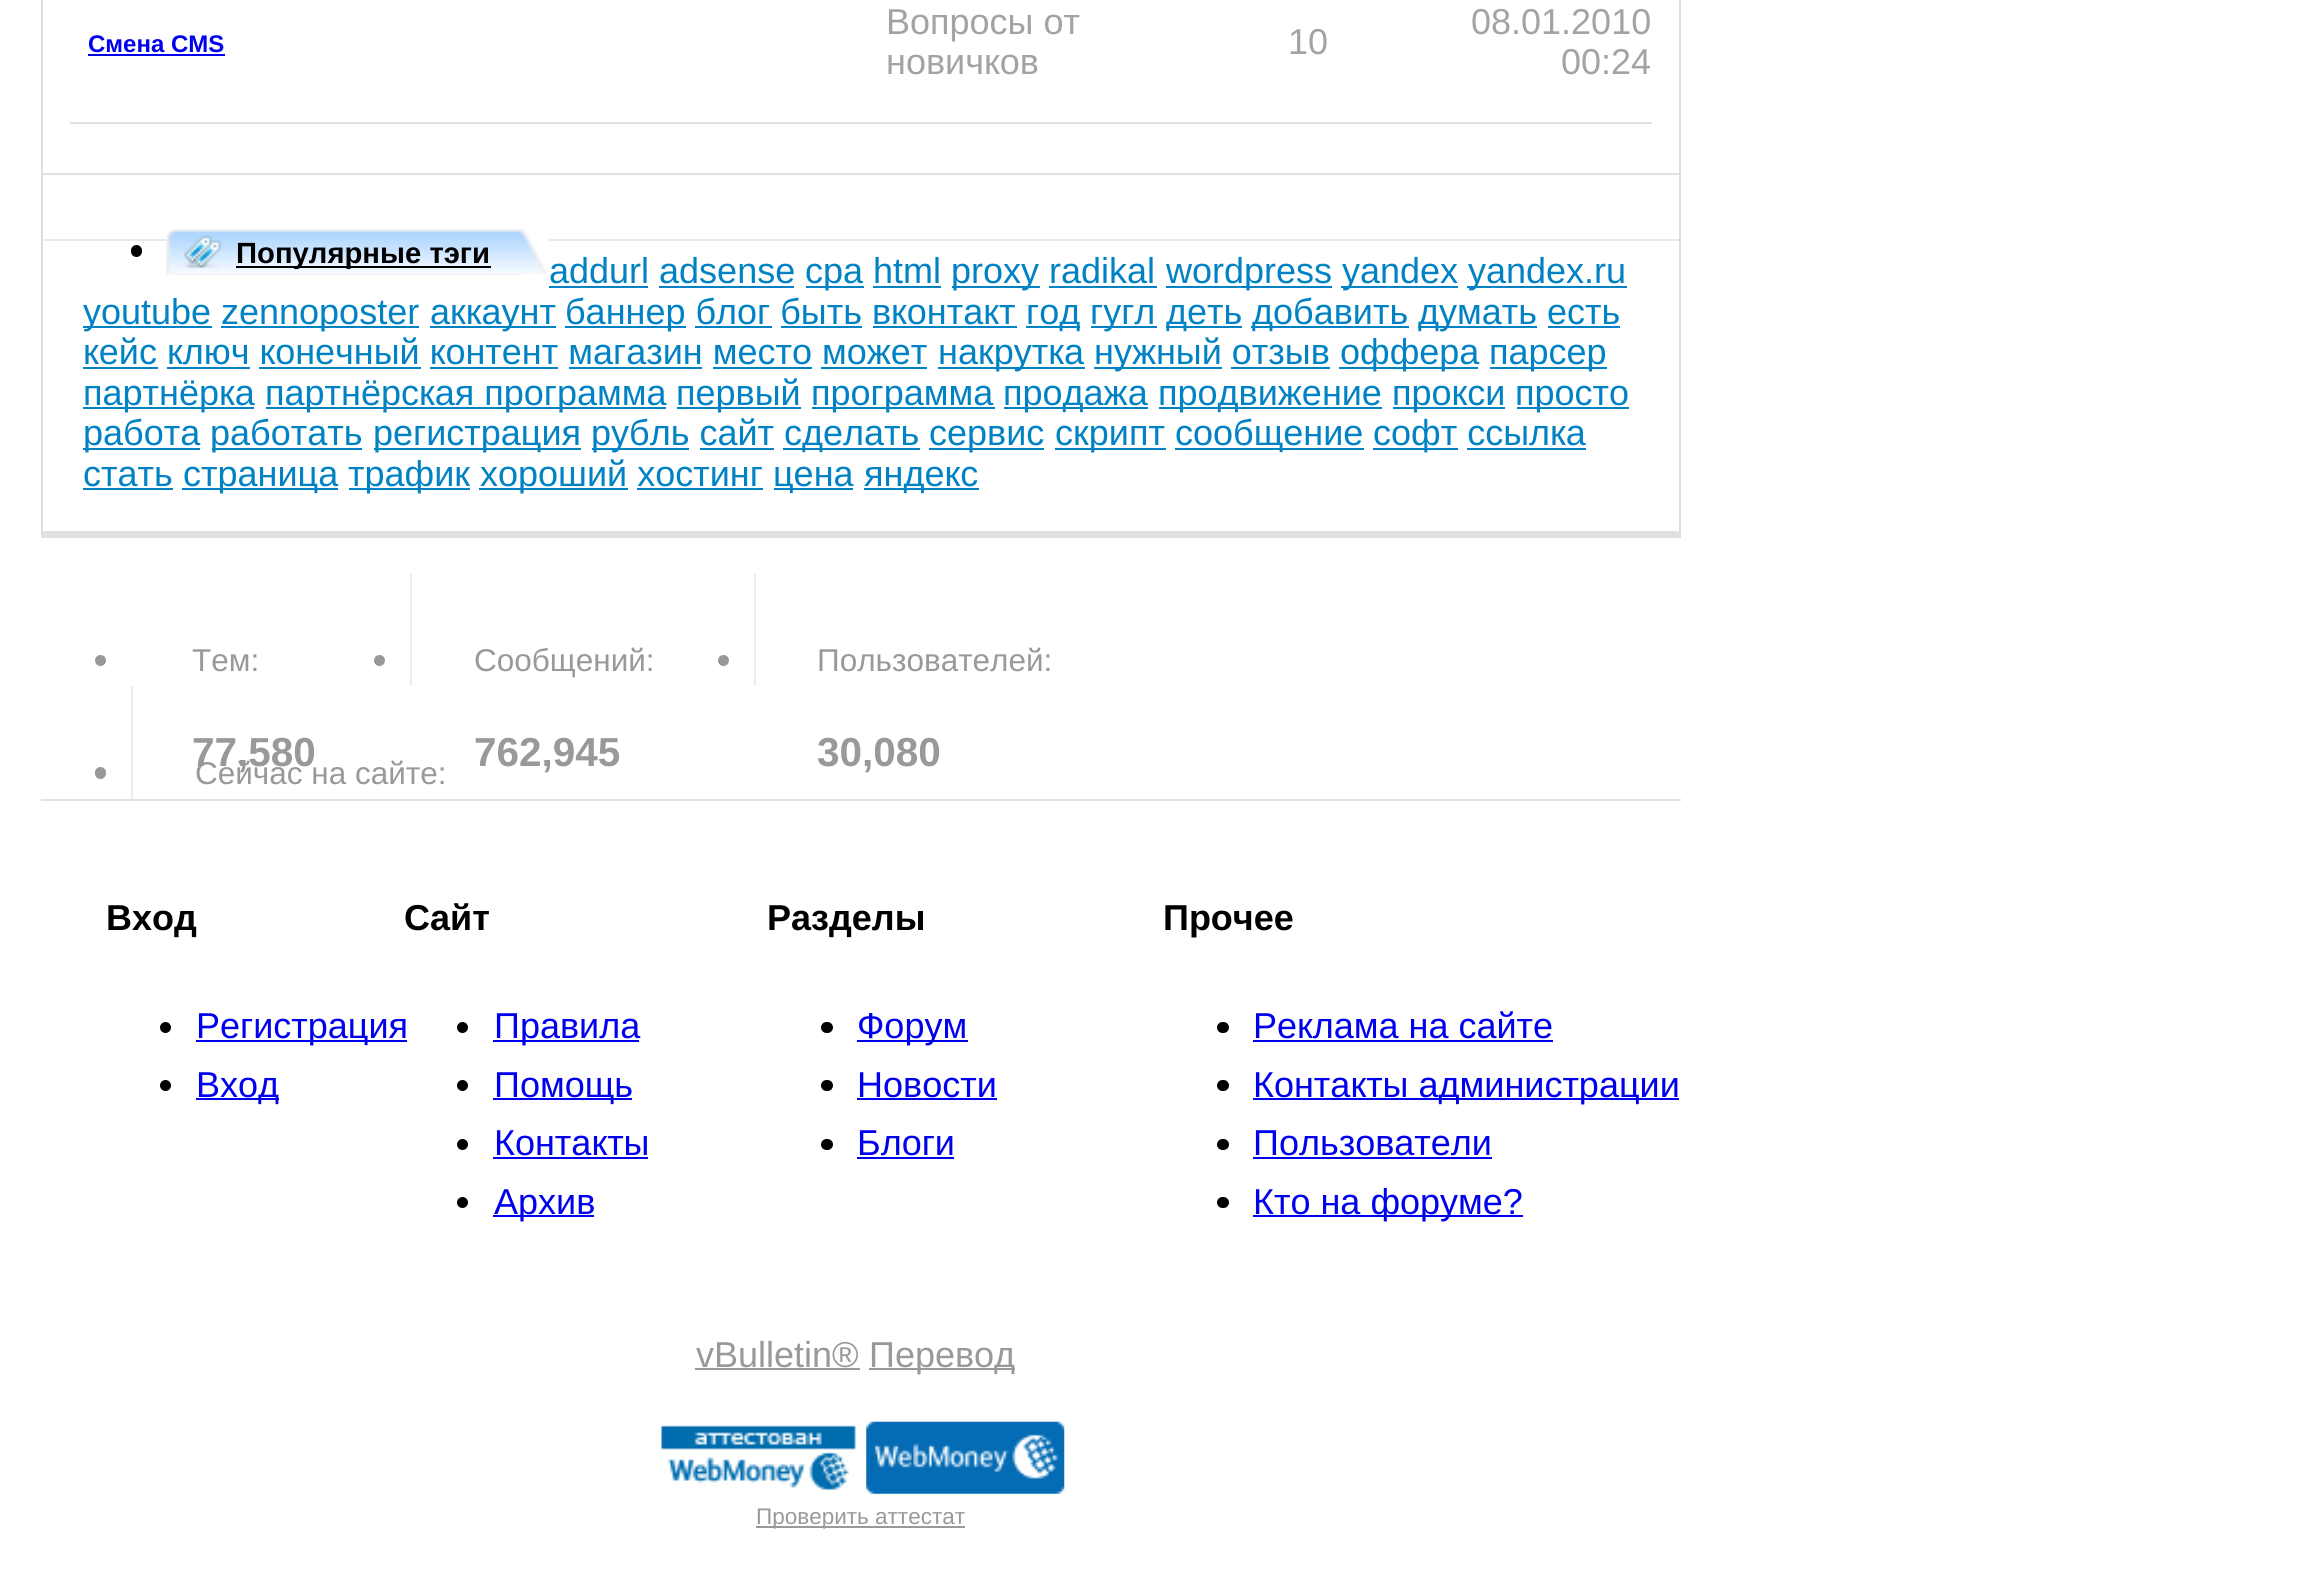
import math
import cairo

surface = cairo.ImageSurface(cairo.FORMAT_RGB24, 2304, 1569)
cr = cairo.Context(surface)
options = cairo.FontOptions()
options.set_hint_metrics(cairo.HINT_METRICS_OFF)
options.set_hint_style(cairo.HINT_STYLE_NONE)
cr.set_font_options(options)
cr.set_miter_limit(4)


def rgb(code):
    cr.set_source_rgb(*(v / 255 for v in bytes.fromhex(code[-6:])))


def rrect(x, y, w, h, r):
    cr.new_sub_path()
    for i, (u, v) in enumerate([(x + w - r, y + h - r), (x + r, y + h - r), (x + r, y + r), (x + w - r, y + r)]):
        cr.arc(u, v, r, i * math.pi / 2, (i + 1) * math.pi / 2)
    cr.close_path()


def image(path, x, y, w, h):
    cr.save()
    cr.set_source_surface(cairo.ImageSurface.create_from_png(path), x, y)
    cr.rectangle(x, y, w, h)
    cr.fill()
    cr.restore()


rgb("#ffffff")
cr.paint()
for x, y, w, h, color in [
    (43, 173, 1636, 2, "#e1e1e1"),
    (70, 122, 1582, 2, "#e1e1e1"),
    (88, 54, 137, 2, "#0000ee"),
    (1679, 0, 2, 531, "#dddddd"),
    (41, 0, 2, 531, "#dddddd"),
    (43, 239, 1636, 2, "#e9e9e9"),
]:
    rgb(color)
    cr.rectangle(x, y, w, h)
    cr.fill()
rgb("#000000")
rrect(131, 245, 11, 12, 5.5)
cr.fill()
image("img/1.png", 166, 229, 383, 48)
for x, y, w, h, color in [
    (167, 275, 358, 2, "#ffffff"),
    (236, 266, 255, 2, "#000000"),
    (549, 286, 99, 2, "#0182c4"),
    (806, 286, 58, 2, "#0182c4"),
    (952, 286, 88, 2, "#0182c4"),
    (1166, 286, 166, 2, "#0182c4"),
    (1341, 286, 117, 2, "#0182c4"),
    (1467, 286, 160, 2, "#0182c4"),
    (659, 286, 135, 2, "#0182c4"),
    (873, 286, 68, 2, "#0182c4"),
    (1049, 286, 108, 2, "#0182c4"),
    (83, 326, 129, 2, "#0182c4"),
    (221, 326, 198, 2, "#0182c4"),
    (430, 326, 126, 2, "#0182c4"),
    (565, 326, 121, 2, "#0182c4"),
    (1026, 326, 54, 2, "#0182c4"),
    (1091, 326, 66, 2, "#0182c4"),
    (1166, 326, 76, 2, "#0182c4"),
    (1251, 326, 158, 2, "#0182c4"),
    (1418, 326, 119, 2, "#0182c4"),
    (695, 326, 77, 2, "#0182c4"),
    (781, 326, 81, 2, "#0182c4"),
    (873, 326, 144, 2, "#0182c4"),
    (1548, 326, 72, 2, "#0182c4"),
    (83, 367, 75, 2, "#0182c4"),
    (938, 367, 147, 2, "#0182c4"),
    (1094, 367, 128, 2, "#0182c4"),
    (1339, 367, 139, 2, "#0182c4"),
    (1490, 367, 117, 2, "#0182c4"),
    (167, 367, 83, 2, "#0182c4"),
    (259, 367, 162, 2, "#0182c4"),
    (430, 367, 128, 2, "#0182c4"),
    (569, 367, 133, 2, "#0182c4"),
    (713, 367, 99, 2, "#0182c4"),
    (821, 367, 106, 2, "#0182c4"),
    (1231, 367, 99, 2, "#0182c4"),
    (83, 407, 171, 2, "#0182c4"),
    (266, 407, 400, 2, "#0182c4"),
    (677, 407, 124, 2, "#0182c4"),
    (812, 407, 183, 2, "#0182c4"),
    (1004, 407, 144, 2, "#0182c4"),
    (1159, 407, 223, 2, "#0182c4"),
    (1393, 407, 112, 2, "#0182c4"),
    (1517, 407, 112, 2, "#0182c4"),
    (83, 448, 117, 2, "#0182c4"),
    (212, 448, 150, 2, "#0182c4"),
    (374, 448, 207, 2, "#0182c4"),
    (592, 448, 97, 2, "#0182c4"),
    (783, 448, 137, 2, "#0182c4"),
    (929, 448, 115, 2, "#0182c4"),
    (1055, 448, 111, 2, "#0182c4"),
    (1175, 448, 189, 2, "#0182c4"),
    (1373, 448, 85, 2, "#0182c4"),
    (700, 448, 74, 2, "#0182c4"),
    (1467, 448, 119, 2, "#0182c4"),
    (83, 488, 90, 2, "#0182c4"),
    (182, 488, 156, 2, "#0182c4"),
    (349, 488, 121, 2, "#0182c4"),
    (479, 488, 149, 2, "#0182c4"),
    (774, 488, 79, 2, "#0182c4"),
    (864, 488, 115, 2, "#0182c4"),
    (637, 488, 126, 2, "#0182c4"),
    (41, 531, 1640, 7, "#e1e1e1"),
    (41, 799, 1640, 2, "#e1e1e1"),
]:
    rgb(color)
    cr.rectangle(x, y, w, h)
    cr.fill()
rgb("#989898")
cr.arc(100.5, 660.5, 5.5, 0, 2 * math.pi)
cr.fill()
rgb("#ececec")
cr.rectangle(410, 574, 2, 112)
cr.fill()
rgb("#989898")
cr.arc(379.5, 660.5, 5.5, 0, 2 * math.pi)
cr.fill()
rgb("#ececec")
cr.rectangle(754, 574, 2, 112)
cr.fill()
rgb("#989898")
cr.arc(723.5, 660.5, 5.5, 0, 2 * math.pi)
cr.fill()
rgb("#ececec")
cr.rectangle(131, 686, 2, 113)
cr.fill()
rgb("#989898")
rrect(95, 767, 11, 12, 5.5)
cr.fill()
rgb("#000000")
cr.arc(165.5, 1027.5, 5.5, 0, 2 * math.pi)
cr.fill()
rgb("#0000ee")
cr.rectangle(196, 1040, 211, 2)
cr.fill()
rgb("#000000")
cr.arc(165.5, 1085.5, 5.5, 0, 2 * math.pi)
cr.fill()
rgb("#0000ee")
cr.rectangle(196, 1098, 83, 2)
cr.fill()
rgb("#000000")
cr.arc(462.5, 1027.5, 5.5, 0, 2 * math.pi)
cr.fill()
rgb("#0000ee")
cr.rectangle(493, 1040, 146, 2)
cr.fill()
rgb("#000000")
cr.arc(462.5, 1085.5, 5.5, 0, 2 * math.pi)
cr.fill()
rgb("#0000ee")
cr.rectangle(493, 1098, 139, 2)
cr.fill()
rgb("#000000")
cr.arc(462.5, 1144.5, 5.5, 0, 2 * math.pi)
cr.fill()
rgb("#0000ee")
cr.rectangle(493, 1157, 155, 2)
cr.fill()
rgb("#000000")
cr.arc(462.5, 1202.5, 5.5, 0, 2 * math.pi)
cr.fill()
rgb("#0000ee")
cr.rectangle(493, 1215, 101, 2)
cr.fill()
rgb("#000000")
rrect(821, 1022, 12, 11, 5.5)
cr.fill()
rgb("#0000ee")
cr.rectangle(857, 1040, 111, 2)
cr.fill()
rgb("#000000")
rrect(821, 1080, 12, 11, 5.5)
cr.fill()
rgb("#0000ee")
cr.rectangle(857, 1098, 140, 2)
cr.fill()
rgb("#000000")
rrect(821, 1139, 12, 11, 5.5)
cr.fill()
rgb("#0000ee")
cr.rectangle(857, 1157, 97, 2)
cr.fill()
rgb("#000000")
rrect(1217, 1022, 12, 11, 5.5)
cr.fill()
rgb("#0000ee")
cr.rectangle(1253, 1040, 300, 2)
cr.fill()
rgb("#000000")
rrect(1217, 1080, 12, 11, 5.5)
cr.fill()
rgb("#0000ee")
cr.rectangle(1253, 1098, 426, 2)
cr.fill()
rgb("#000000")
rrect(1217, 1139, 12, 11, 5.5)
cr.fill()
rgb("#0000ee")
cr.rectangle(1253, 1157, 239, 2)
cr.fill()
rgb("#000000")
rrect(1217, 1197, 12, 11, 5.5)
cr.fill()
for x, y, w, h, color in [
    (1253, 1215, 270, 2, "#0000ee"),
    (695, 1368, 165, 2, "#999999"),
    (869, 1368, 146, 2, "#999999"),
]:
    rgb(color)
    cr.rectangle(x, y, w, h)
    cr.fill()
image("img/2.png", 661, 1425, 195, 65)
image("img/3.png", 866, 1421, 199, 73)
cr.rectangle(756, 1526, 209, 2)
cr.fill()
cr.select_font_face("Liberation Sans", cairo.FONT_SLANT_NORMAL, cairo.FONT_WEIGHT_BOLD)
cr.set_font_size(24)
rgb("#0000ee")
cr.move_to(88, 52)
cr.show_text("Смена CMS")
cr.select_font_face("Liberation Sans")
cr.set_font_size(36)
rgb("#a3a3a3")
for x, y, s in [
    (886, 34, "Вопросы от"),
    (886, 74, "новичков"),
    (1288, 54, "10"),
    (1471, 34, "08.01.2010"),
    (1561, 74, "00:24"),
]:
    cr.move_to(x, y)
    cr.show_text(s)
cr.select_font_face("Liberation Sans", cairo.FONT_SLANT_NORMAL, cairo.FONT_WEIGHT_BOLD)
cr.set_font_size(29.25)
rgb("#000000")
cr.move_to(236, 263)
cr.show_text("Популярные тэги")
cr.select_font_face("Liberation Sans")
cr.set_font_size(36)
rgb("#0182c4")
for x, y, s in [
    (549, 283, "addurl adsense"),
    (805, 283, "cpa html"),
    (951, 283, "proxy radikal"),
    (1166, 283, "wordpress"),
    (1342, 283, "yandex"),
    (1468, 283, "yandex.ru"),
    (83, 324, "youtube"),
    (221, 324, "zennoposter"),
    (430, 324, "аккаунт"),
    (565, 324, "баннер блог быть вконтакт"),
    (1026, 324, "год"),
    (1090, 324, "гугл"),
    (1166, 324, "деть"),
    (1252, 324, "добавить"),
    (1418, 324, "думать есть"),
    (83, 364, "кейс ключ конечный контент магазин место может"),
    (938, 364, "накрутка"),
    (1094, 364, "нужный отзыв"),
    (1340, 364, "оффера"),
    (1489, 364, "парсер"),
    (83, 405, "партнёрка"),
    (265, 405, "партнёрская программа"),
    (676, 405, "первый"),
    (811, 405, "программа"),
    (1003, 405, "продажа"),
    (1158, 405, "продвижение"),
    (1392, 405, "прокси"),
    (1515, 405, "просто"),
    (83, 445, "работа"),
    (210, 445, "работать"),
    (373, 445, "регистрация"),
    (591, 445, "рубль сайт"),
    (784, 445, "сделать"),
    (929, 445, "сервис"),
    (1055, 445, "скрипт"),
    (1175, 445, "сообщение"),
    (1373, 445, "софт ссылка"),
    (83, 486, "стать"),
    (183, 486, "страница"),
    (348, 486, "трафик"),
    (480, 486, "хороший хостинг"),
    (773, 486, "цена"),
    (864, 486, "яндекс"),
]:
    cr.move_to(x, y)
    cr.show_text(s)
cr.set_font_size(31.5)
rgb("#999999")
cr.move_to(192, 671)
cr.show_text("Тем:")
cr.select_font_face("Liberation Sans", cairo.FONT_SLANT_NORMAL, cairo.FONT_WEIGHT_BOLD)
cr.set_font_size(40.5)
cr.move_to(192, 766)
cr.show_text("77,580")
cr.select_font_face("Liberation Sans")
cr.set_font_size(31.5)
cr.move_to(474, 671)
cr.show_text("Сообщений:")
cr.select_font_face("Liberation Sans", cairo.FONT_SLANT_NORMAL, cairo.FONT_WEIGHT_BOLD)
cr.set_font_size(40.5)
cr.move_to(474, 766)
cr.show_text("762,945")
cr.select_font_face("Liberation Sans")
cr.set_font_size(31.5)
cr.move_to(817, 671)
cr.show_text("Пользователей:")
cr.select_font_face("Liberation Sans", cairo.FONT_SLANT_NORMAL, cairo.FONT_WEIGHT_BOLD)
cr.set_font_size(40.5)
cr.move_to(817, 766)
cr.show_text("30,080")
cr.select_font_face("Liberation Sans")
cr.set_font_size(31.5)
cr.move_to(195, 784)
cr.show_text("Сейчас на сайте:")
cr.select_font_face("Liberation Sans", cairo.FONT_SLANT_NORMAL, cairo.FONT_WEIGHT_BOLD)
cr.set_font_size(36)
rgb("#000000")
cr.move_to(106, 930)
cr.show_text("Вход")
cr.select_font_face("Liberation Sans")
rgb("#0000ee")
cr.move_to(196, 1038)
cr.show_text("Регистрация")
cr.move_to(196, 1097)
cr.show_text("Вход")
cr.select_font_face("Liberation Sans", cairo.FONT_SLANT_NORMAL, cairo.FONT_WEIGHT_BOLD)
rgb("#000000")
cr.move_to(404, 930)
cr.show_text("Сайт")
cr.select_font_face("Liberation Sans")
rgb("#0000ee")
for x, y, s in [
    (494, 1038, "Правила"),
    (494, 1097, "Помощь"),
    (494, 1155, "Контакты"),
    (494, 1214, "Архив"),
]:
    cr.move_to(x, y)
    cr.show_text(s)
cr.select_font_face("Liberation Sans", cairo.FONT_SLANT_NORMAL, cairo.FONT_WEIGHT_BOLD)
rgb("#000000")
cr.move_to(767, 930)
cr.show_text("Разделы")
cr.select_font_face("Liberation Sans")
rgb("#0000ee")
for x, y, s in [
    (857, 1038, "Форум"),
    (857, 1097, "Новости"),
    (857, 1155, "Блоги"),
]:
    cr.move_to(x, y)
    cr.show_text(s)
cr.select_font_face("Liberation Sans", cairo.FONT_SLANT_NORMAL, cairo.FONT_WEIGHT_BOLD)
rgb("#000000")
cr.move_to(1163, 930)
cr.show_text("Прочее")
cr.select_font_face("Liberation Sans")
rgb("#0000ee")
for x, y, s in [
    (1253, 1038, "Реклама на сайте"),
    (1253, 1097, "Контакты администрации"),
    (1253, 1155, "Пользователи"),
    (1253, 1214, "Кто на форуме?"),
]:
    cr.move_to(x, y)
    cr.show_text(s)
rgb("#999999")
cr.move_to(696, 1367)
cr.show_text("vBulletin®")
cr.move_to(869, 1367)
cr.show_text("Перевод")
cr.set_font_size(22.5)
cr.move_to(756, 1524)
cr.show_text("Проверить аттестат")
surface.write_to_png("page.png")
